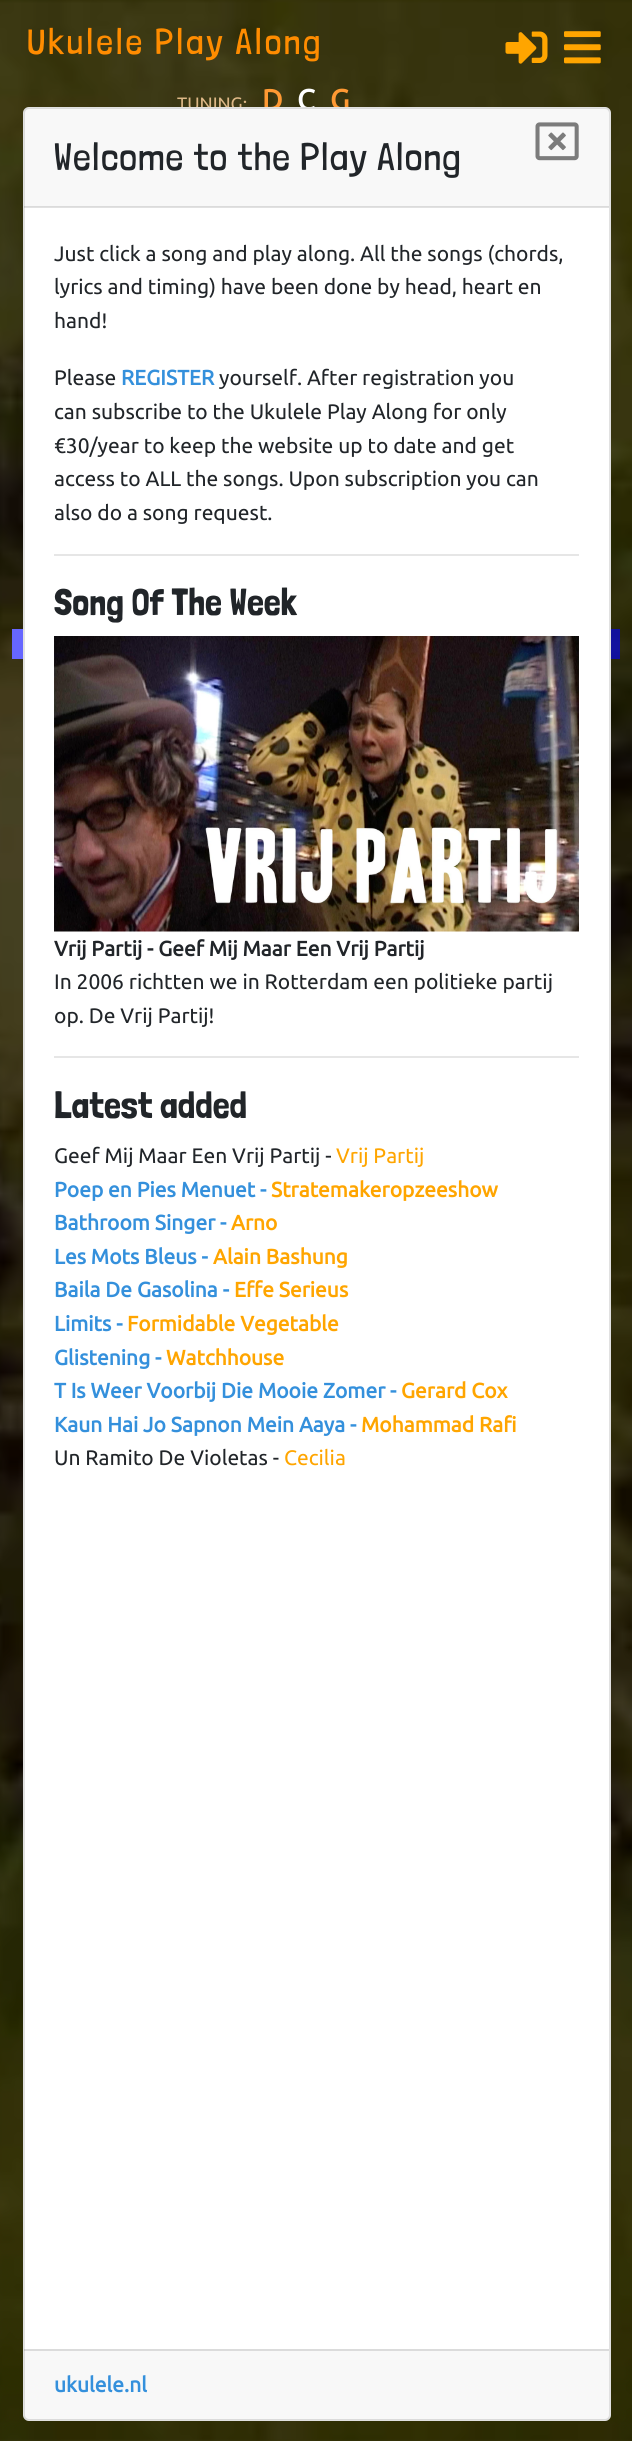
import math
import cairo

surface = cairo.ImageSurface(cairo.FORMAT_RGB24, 632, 2441)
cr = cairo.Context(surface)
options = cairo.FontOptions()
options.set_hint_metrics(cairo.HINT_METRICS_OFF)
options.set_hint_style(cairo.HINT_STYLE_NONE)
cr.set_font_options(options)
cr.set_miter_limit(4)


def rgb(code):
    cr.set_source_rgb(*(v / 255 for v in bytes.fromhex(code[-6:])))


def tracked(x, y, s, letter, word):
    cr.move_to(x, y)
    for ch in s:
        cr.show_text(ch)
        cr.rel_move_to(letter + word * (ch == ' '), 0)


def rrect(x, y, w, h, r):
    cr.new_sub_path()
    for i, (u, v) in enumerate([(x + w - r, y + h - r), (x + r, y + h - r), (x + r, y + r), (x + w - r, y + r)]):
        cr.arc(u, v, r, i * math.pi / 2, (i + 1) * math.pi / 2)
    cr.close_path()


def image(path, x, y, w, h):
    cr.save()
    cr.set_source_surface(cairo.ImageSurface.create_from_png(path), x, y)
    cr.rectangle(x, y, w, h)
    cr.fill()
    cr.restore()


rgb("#ffffff")
cr.paint()
image("img/1.png", 0, 0, 632, 2441)
rgb("#ffffff")
cr.rectangle(12, 629, 11, 30)
cr.fill()
cr.set_source_rgba(0, 0, 1, 0.6)
cr.rectangle(12, 629, 608, 30)
cr.fill()
image("img/4.png", 505, 31, 43, 33)
image("img/5.png", 564, 31, 37, 33)
cr.select_font_face("Londrina Solid Light")
cr.set_font_size(36)
rgb("#ff8c00")
tracked(27, 54, "Ukulele Play Along", 3, 0)
cr.select_font_face("Ubuntu")
cr.set_font_size(18)
rgb("#deb887")
cr.move_to(177, 110)
cr.show_text("TUNING:")
cr.select_font_face("Ubuntu", cairo.FONT_SLANT_NORMAL, cairo.FONT_WEIGHT_BOLD)
cr.set_font_size(29)
rgb("#ff9933")
cr.move_to(262, 110)
cr.show_text("D")
rgb("#ffffff")
cr.move_to(297, 110)
cr.show_text("C")
rgb("#ff9933")
cr.move_to(330, 110)
cr.show_text("G")
rgb("#ffffff")
rrect(23, 107, 588, 2314, 6)
cr.fill()
rrect(24, 108, 586, 2312, 5)
cr.set_source_rgba(0, 0, 0, 0.12)
cr.stroke()
cr.set_source_rgba(0, 0, 0, 0.03)
cr.rectangle(24, 108, 585, 99)
cr.fill()
cr.set_source_rgba(0, 0, 0, 0.12)
cr.rectangle(24, 206, 585, 2)
cr.fill()
cr.select_font_face("Londrina Solid Light")
cr.set_font_size(38.25)
rgb("#212529")
tracked(54, 170, "Welcome to the Play Along", 1.5, 0)
image("img/2.png", 535, 122, 44, 39)
cr.select_font_face("Ubuntu")
cr.set_font_size(21)
for x, y, s in [
    (54, 261, "Just click a song and play along. All the songs (chords,"),
    (54, 294, "lyrics and timing) have been done by head, heart en"),
    (54, 328, "hand!"),
    (54, 385, "Please"),
]:
    cr.move_to(x, y)
    cr.show_text(s)
cr.select_font_face("Ubuntu", cairo.FONT_SLANT_NORMAL, cairo.FONT_WEIGHT_BOLD)
rgb("#3490dc")
cr.move_to(121, 385)
cr.show_text("REGISTER")
cr.select_font_face("Ubuntu")
rgb("#212529")
for x, y, s in [
    (219, 385, "yourself. After registration you"),
    (54, 419, "can subscribe to the Ukulele Play Along for only"),
    (54, 453, "€30/year to keep the website up to date and get"),
    (54, 486, "access to ALL the songs. Upon subscription you can"),
    (54, 520, "also do a song request."),
]:
    cr.move_to(x, y)
    cr.show_text(s)
rgb("#e6e6e6")
cr.rectangle(54, 554, 525, 2)
cr.fill()
cr.select_font_face("Londrina Solid")
cr.set_font_size(37.75)
rgb("#212529")
cr.move_to(54, 615)
cr.show_text("Song Of The Week")
image("img/3.png", 54, 636, 525, 296)
cr.select_font_face("Ubuntu", cairo.FONT_SLANT_NORMAL, cairo.FONT_WEIGHT_BOLD)
cr.set_font_size(21)
cr.move_to(54, 956)
cr.show_text("Vrij Partij - Geef Mij Maar Een Vrij Partij")
cr.select_font_face("Ubuntu")
cr.move_to(54, 989)
cr.show_text("In 2006 richtten we in Rotterdam een politieke partij")
cr.move_to(54, 1023)
cr.show_text("op. De Vrij Partij!")
rgb("#e6e6e6")
cr.rectangle(54, 1056, 525, 2)
cr.fill()
cr.select_font_face("Londrina Solid")
cr.set_font_size(37.75)
rgb("#212529")
cr.move_to(54, 1118)
cr.show_text("Latest added")
cr.select_font_face("Ubuntu")
cr.set_font_size(21)
cr.move_to(54, 1163)
cr.show_text("Geef Mij Maar Een Vrij Partij -")
rgb("#ffa500")
cr.move_to(336, 1163)
cr.show_text("Vrij Partij")
cr.select_font_face("Ubuntu", cairo.FONT_SLANT_NORMAL, cairo.FONT_WEIGHT_BOLD)
rgb("#3490dc")
cr.move_to(54, 1197)
cr.show_text("Poep en Pies Menuet -")
rgb("#ffa500")
cr.move_to(271, 1197)
cr.show_text("Stratemakeropzeeshow")
rgb("#3490dc")
cr.move_to(54, 1230)
cr.show_text("Bathroom Singer -")
rgb("#ffa500")
cr.move_to(231, 1230)
cr.show_text("Arno")
rgb("#3490dc")
cr.move_to(54, 1264)
cr.show_text("Les Mots Bleus -")
rgb("#ffa500")
cr.move_to(213, 1264)
cr.show_text("Alain Bashung")
rgb("#3490dc")
cr.move_to(54, 1297)
cr.show_text("Baila De Gasolina -")
rgb("#ffa500")
cr.move_to(234, 1297)
cr.show_text("Effe Serieus")
rgb("#3490dc")
cr.move_to(54, 1331)
cr.show_text("Limits -")
rgb("#ffa500")
cr.move_to(127, 1331)
cr.show_text("Formidable Vegetable")
rgb("#3490dc")
cr.move_to(54, 1365)
cr.show_text("Glistening -")
rgb("#ffa500")
cr.move_to(166, 1365)
cr.show_text("Watchhouse")
rgb("#3490dc")
cr.move_to(54, 1398)
cr.show_text("T Is Weer Voorbij Die Mooie Zomer -")
rgb("#ffa500")
cr.move_to(401, 1398)
cr.show_text("Gerard Cox")
rgb("#3490dc")
cr.move_to(54, 1432)
cr.show_text("Kaun Hai Jo Sapnon Mein Aaya -")
rgb("#ffa500")
cr.move_to(361, 1432)
cr.show_text("Mohammad Rafi")
cr.select_font_face("Ubuntu")
rgb("#212529")
cr.move_to(54, 1465)
cr.show_text("Un Ramito De Violetas -")
rgb("#ffa500")
cr.move_to(284, 1465)
cr.show_text("Cecilia")
cr.set_source_rgba(0, 0, 0, 0.03)
cr.rectangle(24, 2349, 585, 71)
cr.fill()
cr.set_source_rgba(0, 0, 0, 0.12)
cr.rectangle(24, 2349, 585, 2)
cr.fill()
cr.select_font_face("Ubuntu", cairo.FONT_SLANT_NORMAL, cairo.FONT_WEIGHT_BOLD)
rgb("#3490dc")
cr.move_to(54, 2392)
cr.show_text("ukulele.nl")
surface.write_to_png("page.png")
